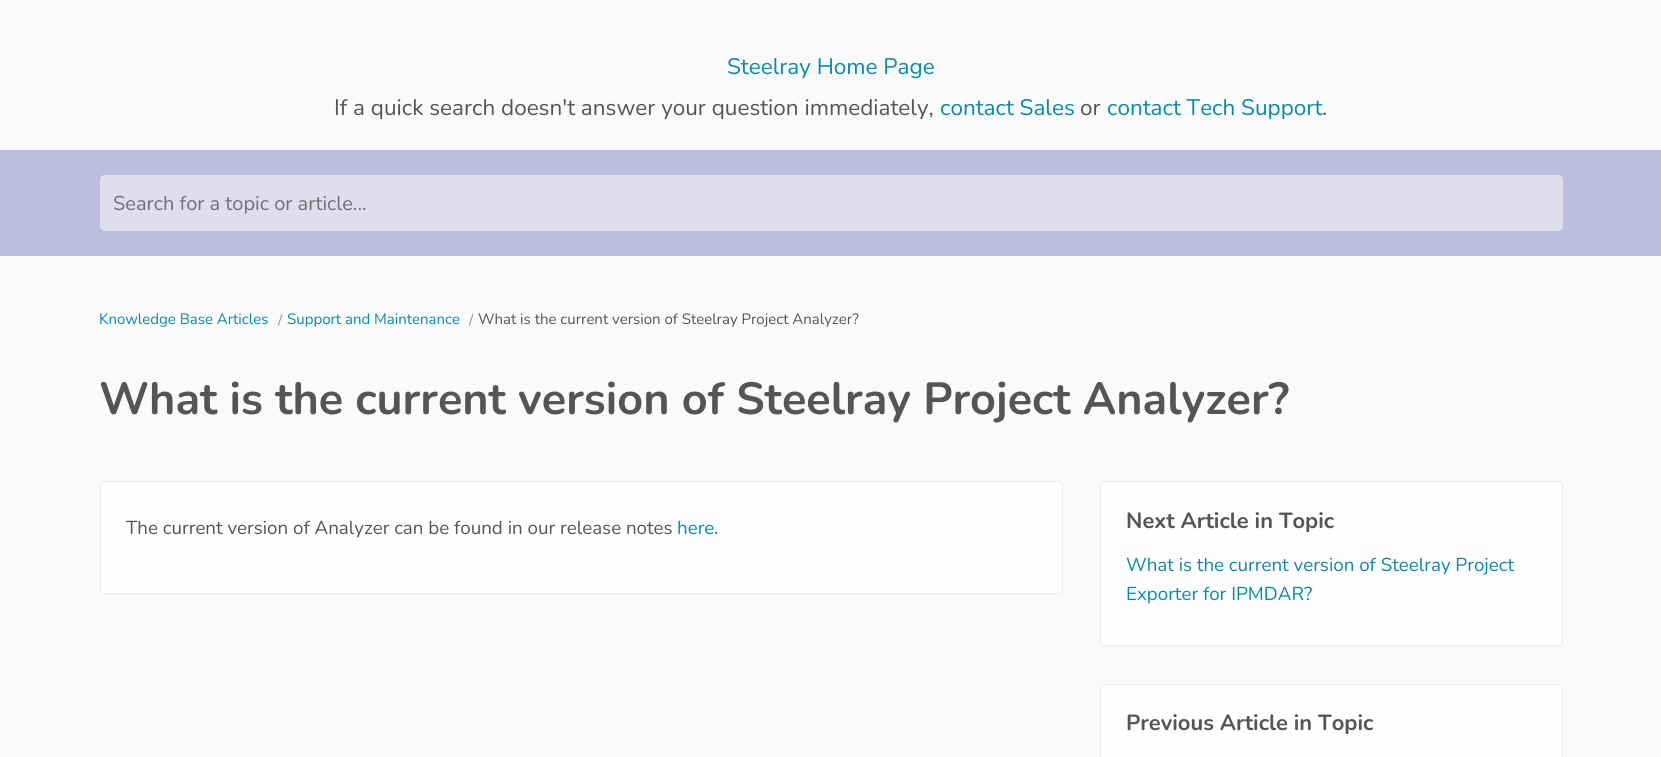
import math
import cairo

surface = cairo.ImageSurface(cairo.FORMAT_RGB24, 1661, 757)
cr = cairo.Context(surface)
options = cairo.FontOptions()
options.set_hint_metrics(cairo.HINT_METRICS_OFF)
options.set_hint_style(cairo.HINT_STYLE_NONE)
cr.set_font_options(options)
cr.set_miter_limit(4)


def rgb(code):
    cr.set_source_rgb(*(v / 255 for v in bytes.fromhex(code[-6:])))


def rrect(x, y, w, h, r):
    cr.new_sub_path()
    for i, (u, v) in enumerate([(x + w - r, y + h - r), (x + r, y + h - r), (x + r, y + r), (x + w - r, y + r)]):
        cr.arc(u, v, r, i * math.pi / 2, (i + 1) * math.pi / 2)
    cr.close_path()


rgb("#fafafa")
cr.paint()
rgb("#bebcdf")
cr.rectangle(0, 150, 1661, 106)
cr.fill()
rgb("#dfdeef")
rrect(100, 175, 1463, 56, 5)
cr.fill()
cr.set_source_rgba(1, 1, 1, 0.8)
rrect(100, 481, 963, 113, 4)
cr.fill()
rrect(100.5, 481.5, 962, 112, 3.5)
cr.set_source_rgba(0, 0, 0, 0.08)
cr.set_line_width(1)
cr.stroke()
rgb("#fefefe")
rrect(1100.5, 481.5, 462, 164, 3.5)
cr.fill_preserve()
rgb("#eaeaea")
cr.stroke()
rgb("#fefefe")
rrect(1100.5, 684.5, 462, 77, 3.5)
cr.fill_preserve()
rgb("#eaeaea")
cr.stroke()
cr.select_font_face("Nunito")
cr.set_font_size(22.5)
rgb("#088aab")
cr.move_to(727, 74)
cr.show_text("Steelray Home Page")
rgb("#555555")
cr.move_to(334, 115)
cr.show_text("If a quick search doesn't answer your question immediately,")
rgb("#088aab")
cr.move_to(940, 115)
cr.show_text("contact Sales")
rgb("#555555")
cr.move_to(1080, 115)
cr.show_text("or")
rgb("#088aab")
cr.move_to(1107, 115)
cr.show_text("contact Tech Support")
rgb("#555555")
cr.move_to(1322, 115)
cr.show_text(".")
cr.set_font_size(20)
rgb("#706f78")
cr.move_to(113, 210)
cr.show_text("Search for a topic or article...")
cr.set_font_size(15)
rgb("#088aab")
cr.move_to(99, 324)
cr.show_text("Knowledge Base Articles")
rgb("#999999")
cr.move_to(278, 325)
cr.show_text("/")
rgb("#088aab")
cr.move_to(287, 324)
cr.show_text("Support and Maintenance")
rgb("#999999")
cr.move_to(469, 325)
cr.show_text("/")
rgb("#555555")
cr.move_to(478, 324)
cr.show_text("What is the current version of Steelray Project Analyzer?")
cr.select_font_face("Nunito", cairo.FONT_SLANT_NORMAL, cairo.FONT_WEIGHT_BOLD)
cr.set_font_size(45)
cr.move_to(99, 414)
cr.show_text("What is the current version of Steelray Project Analyzer?")
cr.select_font_face("Nunito")
cr.set_font_size(18.75)
cr.move_to(126, 534)
cr.show_text("The current version of Analyzer can be found in our release notes")
rgb("#088aab")
cr.move_to(677, 534)
cr.show_text("here")
rgb("#555555")
cr.move_to(714, 534)
cr.show_text(".")
cr.select_font_face("Nunito", cairo.FONT_SLANT_NORMAL, cairo.FONT_WEIGHT_BOLD)
cr.set_font_size(21.9)
cr.move_to(1126, 528)
cr.show_text("Next Article in Topic")
cr.select_font_face("Nunito")
cr.set_font_size(18.75)
rgb("#088aab")
cr.move_to(1126, 571)
cr.show_text("What is the current version of Steelray Project")
cr.move_to(1126, 600)
cr.show_text("Exporter for IPMDAR?")
cr.select_font_face("Nunito", cairo.FONT_SLANT_NORMAL, cairo.FONT_WEIGHT_BOLD)
cr.set_font_size(21.9)
rgb("#555555")
cr.move_to(1126, 730)
cr.show_text("Previous Article in Topic")
surface.write_to_png("page.png")
